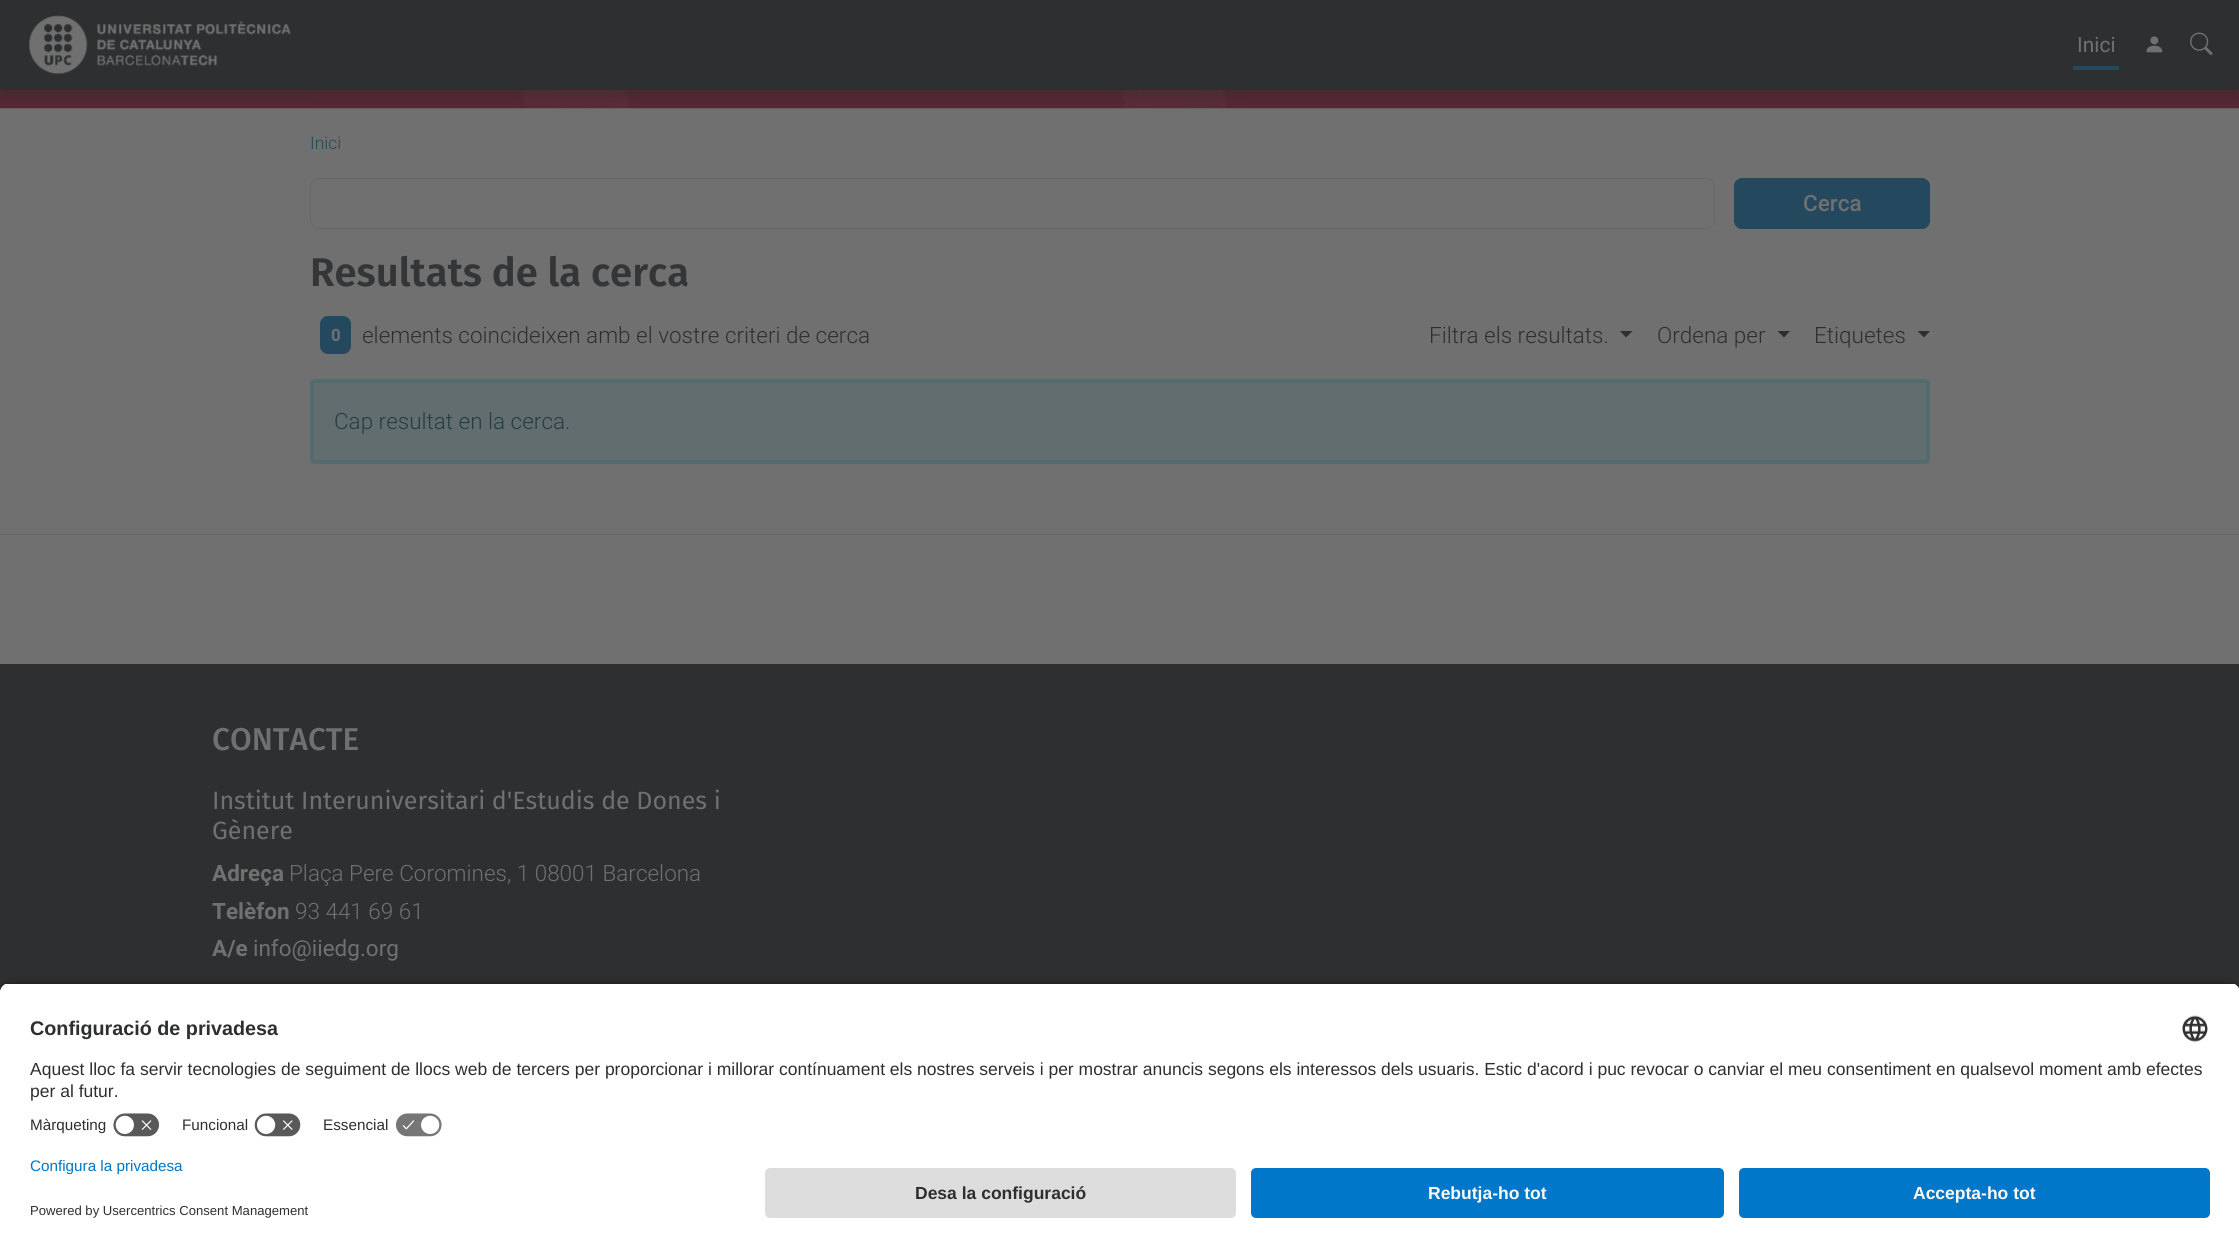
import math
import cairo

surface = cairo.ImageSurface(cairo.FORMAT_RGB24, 2239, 1247)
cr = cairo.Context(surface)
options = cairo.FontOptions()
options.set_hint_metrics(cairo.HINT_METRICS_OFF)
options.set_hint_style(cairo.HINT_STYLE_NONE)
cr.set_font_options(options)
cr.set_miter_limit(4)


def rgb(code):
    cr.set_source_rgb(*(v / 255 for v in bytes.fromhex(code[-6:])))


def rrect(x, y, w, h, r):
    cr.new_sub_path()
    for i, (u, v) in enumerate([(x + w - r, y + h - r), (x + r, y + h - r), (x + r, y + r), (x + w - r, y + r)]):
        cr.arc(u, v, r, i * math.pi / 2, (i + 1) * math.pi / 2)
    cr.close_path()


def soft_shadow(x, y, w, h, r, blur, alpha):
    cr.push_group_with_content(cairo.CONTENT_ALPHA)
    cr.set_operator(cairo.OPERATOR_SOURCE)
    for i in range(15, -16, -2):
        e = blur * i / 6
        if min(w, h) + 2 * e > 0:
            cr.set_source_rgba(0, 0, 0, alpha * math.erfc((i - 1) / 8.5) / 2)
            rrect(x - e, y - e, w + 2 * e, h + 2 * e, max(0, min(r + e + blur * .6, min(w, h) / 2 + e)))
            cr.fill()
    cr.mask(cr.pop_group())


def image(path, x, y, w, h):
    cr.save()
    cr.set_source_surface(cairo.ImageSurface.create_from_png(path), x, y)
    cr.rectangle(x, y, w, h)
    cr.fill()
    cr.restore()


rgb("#707070")
cr.paint()
image("img/4.png", 0, 90, 2239, 19)
rgb("#242424")
soft_shadow(0, 9, 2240, 90, 0, 5, 0.2)
rgb("#2e2f30")
cr.rectangle(0, 0, 2239, 90)
cr.fill()
image("img/1.png", 29, 15, 263, 60)
rgb("#24495e")
cr.rectangle(2073, 66, 46, 4)
cr.fill()
image("img/2.png", 2146, 36, 17, 17)
image("img/3.png", 2190, 32, 23, 23)
rrect(310.5, 178.5, 1404, 50, 8.5)
rgb("#666869")
cr.set_line_width(1)
cr.stroke()
rgb("#24495e")
rrect(1734.5, 178.5, 195, 50, 7.5)
cr.fill_preserve()
cr.stroke()
rrect(320, 316, 31, 38, 8)
cr.fill()
rgb("#2e2f30")
cr.new_path()
cr.move_to(1620, 331)
cr.line_to(1632.5, 331)
cr.line_to(1626, 337.5)
cr.close_path()
cr.fill()
cr.new_path()
cr.move_to(1777.5, 331)
cr.line_to(1790, 331)
cr.line_to(1784, 337.5)
cr.close_path()
cr.fill()
cr.new_path()
cr.move_to(1917.5, 331)
cr.line_to(1930, 331)
cr.line_to(1924, 337.5)
cr.close_path()
cr.fill()
rgb("#626d6f")
rrect(312, 381, 1616, 81, 3)
cr.fill_preserve()
rgb("#536a6e")
cr.set_line_width(4)
cr.stroke()
rgb("#2e2f30")
cr.rectangle(0, 664, 2239, 329)
cr.fill()
rgb("#666869")
cr.rectangle(0, 534, 2239, 1)
cr.fill()
rgb("#000000")
soft_shadow(0, 986, 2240, 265, 10, 4.5, 0.8)
cr.save()
cr.new_path()
cr.move_to(10, 983)
cr.line_to(2230, 983)
cr.curve_to(2235.5, 983, 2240, 987.5, 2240, 993)
cr.line_to(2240, 1158)
cr.line_to(0, 1158)
cr.line_to(0, 993)
cr.curve_to(0, 987.5, 4.5, 983, 10, 983)
cr.close_path()
cr.clip()
rgb("#ffffff")
cr.rectangle(0, 984, 2239, 174)
cr.fill()
cr.rectangle(0, 984, 2239, 124)
cr.fill()
cr.restore()
image("img/5.png", 2182, 1015, 26, 27)
image("img/6.png", 112, 1112, 48, 25)
image("img/7.png", 254, 1113, 47, 24)
image("img/8.png", 395, 1113, 48, 24)
rgb("#ffffff")
cr.rectangle(0, 1158, 2239, 89)
cr.fill()
rgb("#dddddd")
rrect(765, 1168, 471, 50, 5)
cr.fill()
rgb("#0077c8")
rrect(1251, 1168, 473, 50, 5)
cr.fill()
rrect(1739, 1168, 471, 50, 5)
cr.fill()
cr.select_font_face("Roboto")
cr.set_font_size(21)
rgb("#707070")
cr.move_to(2077, 52)
cr.show_text("Inici")
cr.select_font_face("Roboto Light")
cr.set_font_size(17.5)
rgb("#244959")
cr.move_to(310, 149)
cr.show_text("Inici")
cr.select_font_face("Roboto Medium")
cr.set_font_size(22.5)
rgb("#707070")
cr.move_to(1803, 211)
cr.show_text("Cerca")
cr.select_font_face("Fira Sans SemiBold")
cr.set_font_size(40)
rgb("#333537")
cr.move_to(310, 286)
cr.show_text("Resultats de la cerca")
cr.select_font_face("Roboto", cairo.FONT_SLANT_NORMAL, cairo.FONT_WEIGHT_BOLD)
cr.set_font_size(17)
rgb("#707070")
cr.move_to(331, 341)
cr.show_text("0")
cr.select_font_face("Roboto Light")
cr.set_font_size(22.5)
rgb("#2e2f30")
for x, y, s in [
    (362, 343, "elements coincideixen amb el vostre criteri de cerca"),
    (1429, 343, "Filtra els resultats."),
    (1657, 343, "Ordena per"),
    (1814, 343, "Etiquetes"),
]:
    cr.move_to(x, y)
    cr.show_text(s)
rgb("#253c41")
cr.move_to(334, 429)
cr.show_text("Cap resultat en la cerca.")
cr.select_font_face("Fira Sans Medium")
cr.set_font_size(31.5)
rgb("#707070")
cr.move_to(212, 750)
cr.show_text("CONTACTE")
cr.select_font_face("Fira Sans")
cr.set_font_size(25)
cr.move_to(212, 809)
cr.show_text("Institut Interuniversitari d'Estudis de Dones i")
cr.move_to(212, 839)
cr.show_text("Gènere")
cr.select_font_face("Roboto", cairo.FONT_SLANT_NORMAL, cairo.FONT_WEIGHT_BOLD)
cr.set_font_size(22.5)
cr.move_to(212, 881)
cr.show_text("Adreça")
cr.select_font_face("Roboto Light")
cr.move_to(289, 881)
cr.show_text("Plaça Pere Coromines, 1 08001 Barcelona")
cr.select_font_face("Roboto", cairo.FONT_SLANT_NORMAL, cairo.FONT_WEIGHT_BOLD)
cr.move_to(212, 919)
cr.show_text("Telèfon")
cr.select_font_face("Roboto Light")
cr.move_to(295, 919)
cr.show_text("93 441 69 61")
cr.select_font_face("Roboto", cairo.FONT_SLANT_NORMAL, cairo.FONT_WEIGHT_BOLD)
cr.move_to(212, 956)
cr.show_text("A/e")
cr.select_font_face("Roboto")
cr.move_to(253, 956)
cr.show_text("info@iiedg.org")
cr.select_font_face("Liberation Sans", cairo.FONT_SLANT_NORMAL, cairo.FONT_WEIGHT_BOLD)
cr.set_font_size(19.75)
rgb("#2e2f30")
cr.move_to(30, 1035)
cr.show_text("Configuració de privadesa")
cr.select_font_face("Liberation Sans")
cr.set_font_size(17.5)
cr.move_to(30, 1075)
cr.show_text("Aquest lloc fa servir tecnologies de seguiment de llocs web de tercers per proporcionar i millorar contínuament els nostres serveis i per mostrar anuncis segons els interessos dels usuaris. Estic d'acord i puc revocar o canviar el meu consentiment en qualsevol moment amb efectes")
cr.move_to(30, 1097)
cr.show_text("per al futur.")
cr.set_font_size(15.25)
for x, y, s in [
    (30, 1130, "Màrqueting"),
    (182, 1130, "Funcional"),
    (323, 1130, "Essencial"),
]:
    cr.move_to(x, y)
    cr.show_text(s)
rgb("#0077c8")
cr.move_to(30, 1171)
cr.show_text("Configura la privadesa")
cr.set_font_size(13.1)
rgb("#2e2f30")
cr.move_to(30, 1215)
cr.show_text("Powered by Usercentrics Consent Management")
cr.select_font_face("Liberation Sans", cairo.FONT_SLANT_NORMAL, cairo.FONT_WEIGHT_BOLD)
cr.set_font_size(17.5)
cr.move_to(915, 1199)
cr.show_text("Desa la configuració")
rgb("#fafafa")
cr.move_to(1428, 1199)
cr.show_text("Rebutja-ho tot")
cr.move_to(1913, 1199)
cr.show_text("Accepta-ho tot")
surface.write_to_png("page.png")
